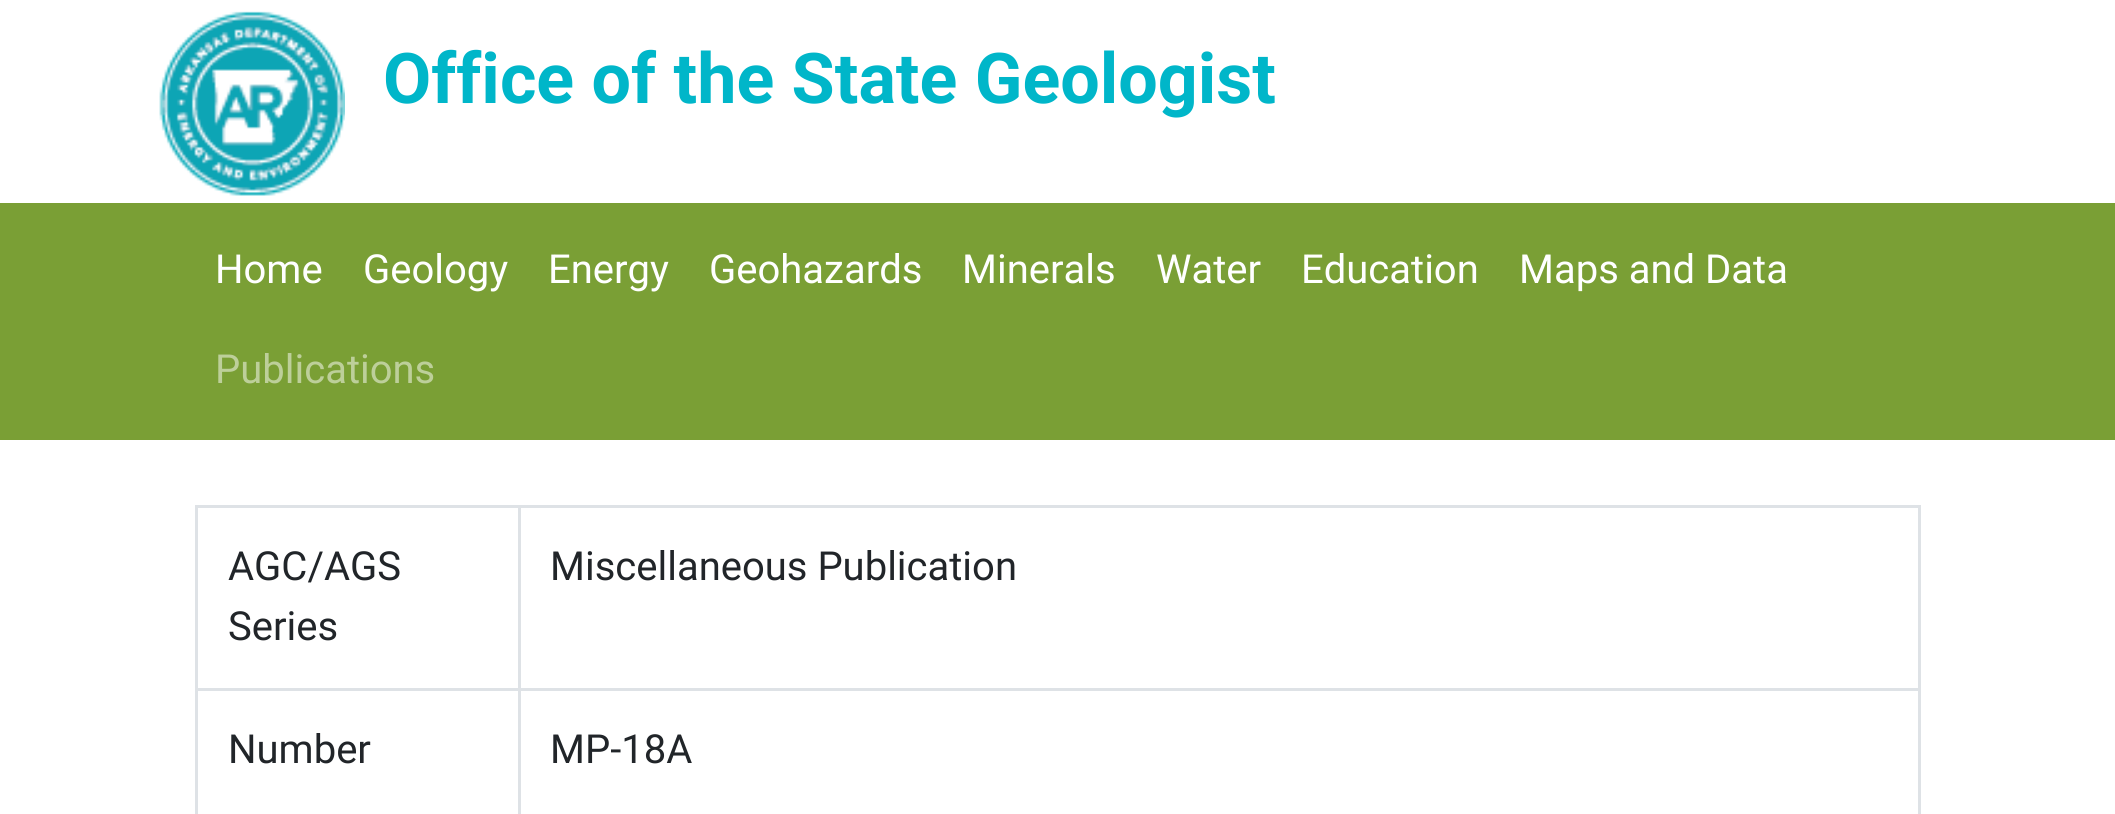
import math
import cairo

surface = cairo.ImageSurface(cairo.FORMAT_RGB24, 2115, 814)
cr = cairo.Context(surface)
options = cairo.FontOptions()
options.set_hint_metrics(cairo.HINT_METRICS_OFF)
options.set_hint_style(cairo.HINT_STYLE_NONE)
cr.set_font_options(options)
cr.set_miter_limit(4)


def rgb(code):
    cr.set_source_rgb(*(v / 255 for v in bytes.fromhex(code[-6:])))


def image(path, x, y, w, h):
    cr.save()
    cr.set_source_surface(cairo.ImageSurface.create_from_png(path), x, y)
    cr.rectangle(x, y, w, h)
    cr.fill()
    cr.restore()


rgb("#ffffff")
cr.paint()
rgb("#7a9f35")
cr.rectangle(0, 203, 2115, 237)
cr.fill()
image("img/1.png", 159, 11, 186, 185)
for x, y, w, h, color in [
    (195, 505, 1725, 3, "#dee2e6"),
    (1918, 505, 3, 309, "#dee2e6"),
    (195, 505, 3, 309, "#dee2e6"),
    (518, 688, 1402, 3, "#dee2e6"),
    (518, 688, 3, 126, "#dee2e6"),
    (195, 688, 325, 3, "#dee2e6"),
    (518, 505, 3, 185, "#dee2e6"),
]:
    rgb(color)
    cr.rectangle(x, y, w, h)
    cr.fill()
cr.select_font_face("Roboto", cairo.FONT_SLANT_NORMAL, cairo.FONT_WEIGHT_BOLD)
cr.set_font_size(70)
rgb("#00b6c9")
cr.move_to(383, 103)
cr.show_text("Office of the State Geologist")
cr.select_font_face("Roboto")
cr.set_font_size(40)
rgb("#ffffff")
for x, y, s in [
    (215, 283, "Home"),
    (363, 283, "Geology"),
    (548, 283, "Energy"),
    (709, 283, "Geohazards"),
    (962, 283, "Minerals"),
    (1156, 283, "Water"),
    (1301, 283, "Education"),
    (1519, 283, "Maps and Data"),
]:
    cr.move_to(x, y)
    cr.show_text(s)
rgb("#bdcf9a")
cr.move_to(215, 383)
cr.show_text("Publications")
rgb("#212529")
for x, y, s in [
    (228, 580, "AGC/AGS"),
    (228, 640, "Series"),
    (550, 580, "Miscellaneous Publication"),
    (228, 763, "Number"),
    (550, 763, "MP-18A"),
]:
    cr.move_to(x, y)
    cr.show_text(s)
surface.write_to_png("page.png")
